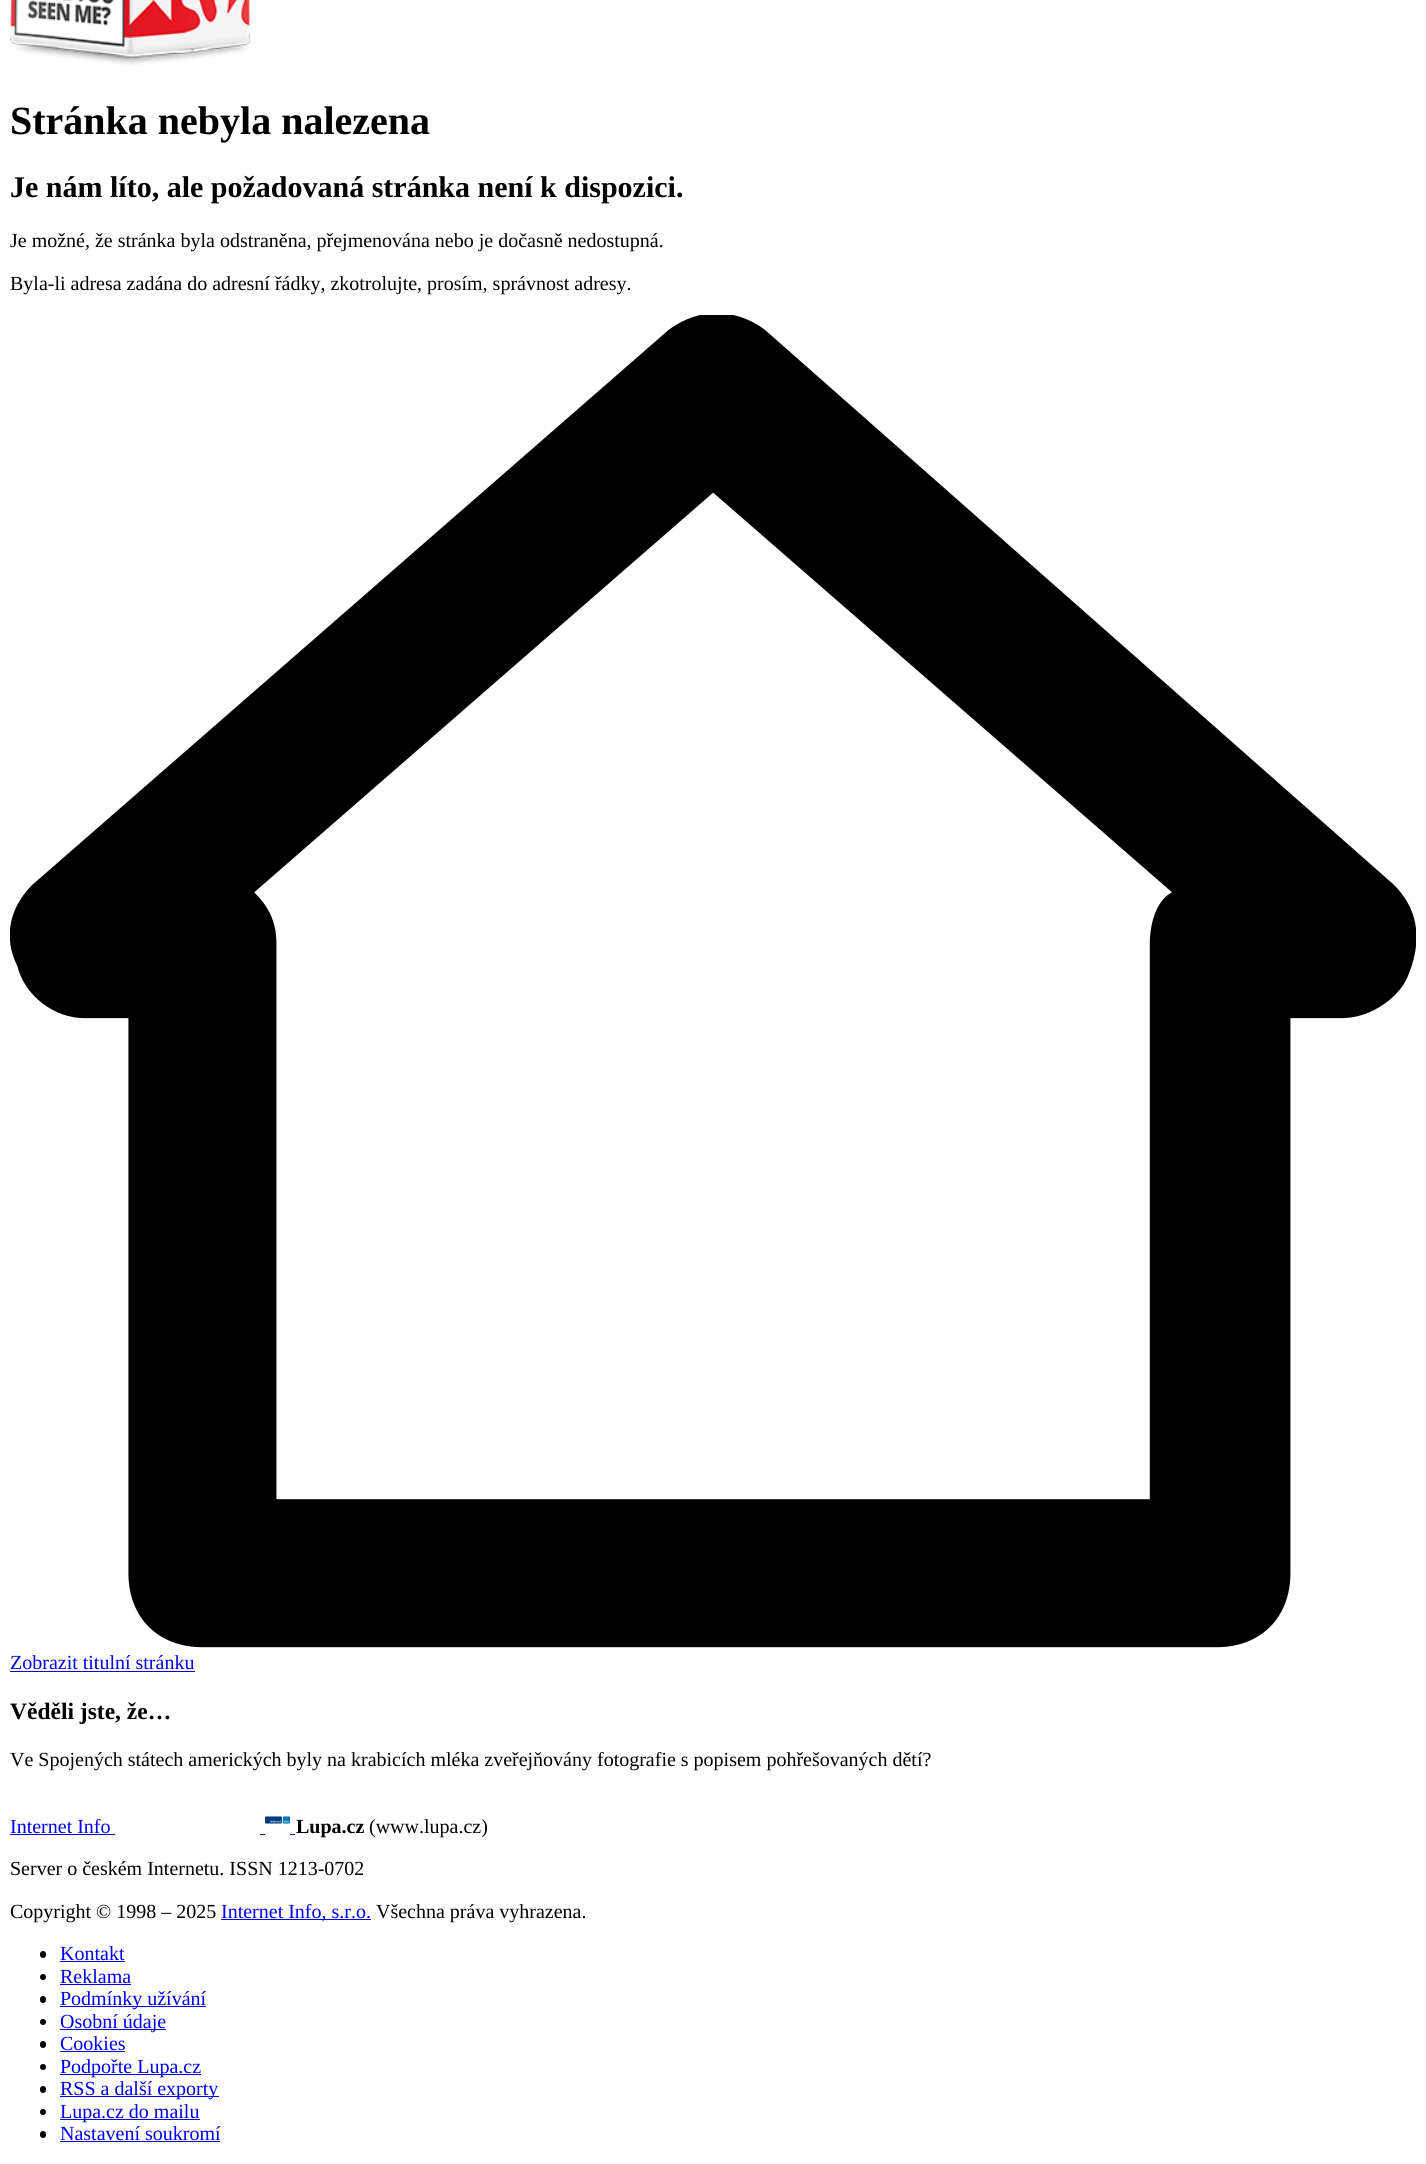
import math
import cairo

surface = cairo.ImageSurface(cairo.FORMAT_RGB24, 1426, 2164)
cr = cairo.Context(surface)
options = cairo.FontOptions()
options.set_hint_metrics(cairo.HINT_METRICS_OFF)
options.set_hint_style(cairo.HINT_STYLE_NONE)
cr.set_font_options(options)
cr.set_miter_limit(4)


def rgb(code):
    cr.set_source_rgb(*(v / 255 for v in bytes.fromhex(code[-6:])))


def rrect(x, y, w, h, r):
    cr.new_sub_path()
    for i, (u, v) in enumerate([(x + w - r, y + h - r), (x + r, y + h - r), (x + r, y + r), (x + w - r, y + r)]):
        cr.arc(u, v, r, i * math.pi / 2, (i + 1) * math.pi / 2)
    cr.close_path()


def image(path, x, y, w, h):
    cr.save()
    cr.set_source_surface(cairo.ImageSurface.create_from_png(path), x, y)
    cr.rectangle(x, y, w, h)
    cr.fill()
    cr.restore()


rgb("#ffffff")
cr.paint()
image("img/1.png", 10, 0, 241, 65)
image("img/2.png", 10, 315, 1406, 1333)
for x, y, w, h, color in [
    (10, 1671, 185, 1, "#0000ee"),
    (10, 1834, 105, 1, "#0000ee"),
    (260, 1834, 5, 1, "#0000ee"),
    (290, 1834, 5, 1, "#0000ee"),
]:
    rgb(color)
    cr.rectangle(x, y, w, h)
    cr.fill()
image("img/3.png", 265, 1816, 25, 8)
cr.rectangle(221, 1919, 150, 1)
cr.fill()
rgb("#000000")
rrect(40, 1951, 6, 7, 3)
cr.fill()
rgb("#0000ee")
cr.rectangle(60, 1961, 65, 1)
cr.fill()
rgb("#000000")
cr.arc(43, 1977, 3, 0, 2 * math.pi)
cr.fill()
rgb("#0000ee")
cr.rectangle(60, 1984, 71, 1)
cr.fill()
rgb("#000000")
rrect(40, 1996, 6, 7, 3)
cr.fill()
rgb("#0000ee")
cr.rectangle(60, 2006, 146, 1)
cr.fill()
rgb("#000000")
cr.arc(43, 2022, 3, 0, 2 * math.pi)
cr.fill()
rgb("#0000ee")
cr.rectangle(60, 2029, 106, 1)
cr.fill()
rgb("#000000")
rrect(40, 2041, 6, 7, 3)
cr.fill()
rgb("#0000ee")
cr.rectangle(60, 2051, 65, 1)
cr.fill()
rgb("#000000")
cr.arc(43, 2067, 3, 0, 2 * math.pi)
cr.fill()
rgb("#0000ee")
cr.rectangle(60, 2074, 141, 1)
cr.fill()
rgb("#000000")
rrect(40, 2086, 6, 7, 3)
cr.fill()
rgb("#0000ee")
cr.rectangle(60, 2096, 159, 1)
cr.fill()
rgb("#000000")
cr.arc(43, 2112, 3, 0, 2 * math.pi)
cr.fill()
rgb("#0000ee")
cr.rectangle(60, 2119, 140, 1)
cr.fill()
rgb("#000000")
rrect(40, 2131, 6, 7, 3)
cr.fill()
rgb("#0000ee")
cr.rectangle(60, 2141, 160, 1)
cr.fill()
cr.select_font_face("Liberation Serif", cairo.FONT_SLANT_NORMAL, cairo.FONT_WEIGHT_BOLD)
cr.set_font_size(40)
rgb("#000000")
cr.move_to(10, 134)
cr.show_text("Stránka nebyla nalezena")
cr.set_font_size(30)
cr.move_to(10, 197)
cr.show_text("Je nám líto, ale požadovaná stránka není k dispozici.")
cr.select_font_face("Liberation Serif")
cr.set_font_size(20)
cr.move_to(10, 247)
cr.show_text("Je možné, že stránka byla odstraněna, přejmenována nebo je dočasně nedostupná.")
cr.move_to(10, 290)
cr.show_text("Byla-li adresa zadána do adresní řádky, zkotrolujte, prosím, správnost adresy.")
rgb("#0000ee")
cr.move_to(10, 1669)
cr.show_text("Zobrazit titulní stránku")
cr.select_font_face("Liberation Serif", cairo.FONT_SLANT_NORMAL, cairo.FONT_WEIGHT_BOLD)
cr.set_font_size(23.5)
rgb("#000000")
cr.move_to(10, 1719)
cr.show_text("Věděli jste, že…")
cr.select_font_face("Liberation Serif")
cr.set_font_size(20)
cr.move_to(10, 1766)
cr.show_text("Ve Spojených státech amerických byly na krabicích mléka zveřejňovány fotografie s popisem pohřešovaných dětí?")
rgb("#0000ee")
cr.move_to(10, 1833)
cr.show_text("Internet Info")
cr.select_font_face("Liberation Serif", cairo.FONT_SLANT_NORMAL, cairo.FONT_WEIGHT_BOLD)
rgb("#000000")
cr.move_to(296, 1833)
cr.show_text("Lupa.cz")
cr.select_font_face("Liberation Serif")
for x, y, s in [
    (369, 1833, "(www.lupa.cz)"),
    (10, 1875, "Server o českém Internetu. ISSN 1213-0702"),
    (10, 1918, "Copyright © 1998 – 2025"),
]:
    cr.move_to(x, y)
    cr.show_text(s)
rgb("#0000ee")
cr.move_to(221, 1918)
cr.show_text("Internet Info, s.r.o.")
rgb("#000000")
cr.move_to(376, 1918)
cr.show_text("Všechna práva vyhrazena.")
rgb("#0000ee")
for x, y, s in [
    (60, 1960, "Kontakt"),
    (60, 1983, "Reklama"),
    (60, 2005, "Podmínky užívání"),
    (60, 2028, "Osobní údaje"),
    (60, 2050, "Cookies"),
    (60, 2073, "Podpořte Lupa.cz"),
    (60, 2095, "RSS a další exporty"),
    (60, 2118, "Lupa.cz do mailu"),
    (60, 2140, "Nastavení soukromí"),
]:
    cr.move_to(x, y)
    cr.show_text(s)
surface.write_to_png("page.png")
